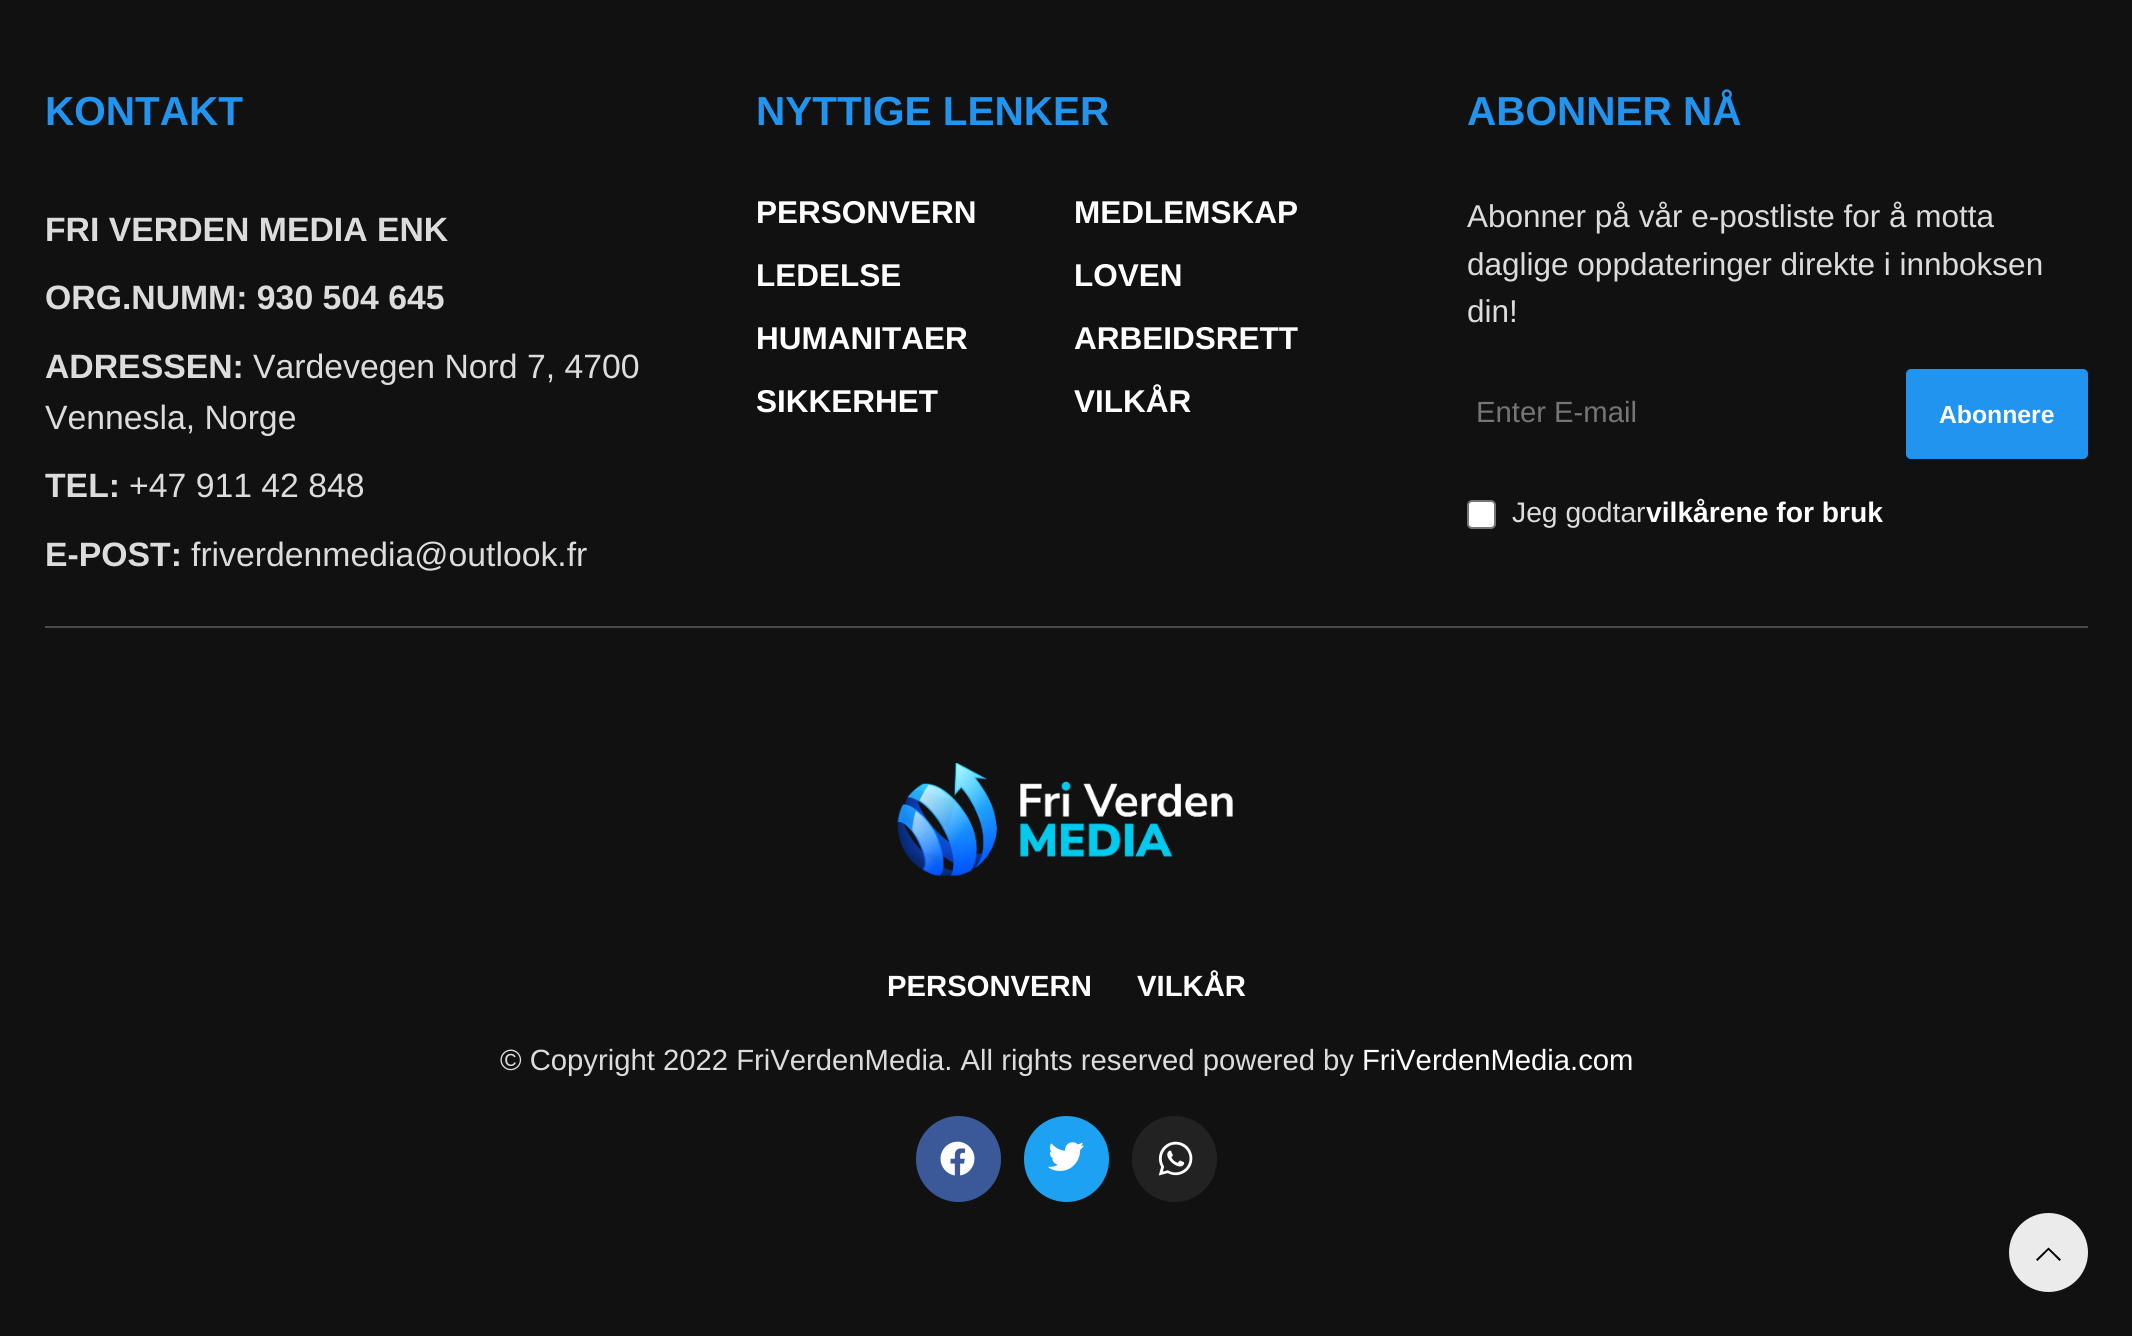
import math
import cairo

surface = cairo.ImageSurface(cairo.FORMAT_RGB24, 2132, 1336)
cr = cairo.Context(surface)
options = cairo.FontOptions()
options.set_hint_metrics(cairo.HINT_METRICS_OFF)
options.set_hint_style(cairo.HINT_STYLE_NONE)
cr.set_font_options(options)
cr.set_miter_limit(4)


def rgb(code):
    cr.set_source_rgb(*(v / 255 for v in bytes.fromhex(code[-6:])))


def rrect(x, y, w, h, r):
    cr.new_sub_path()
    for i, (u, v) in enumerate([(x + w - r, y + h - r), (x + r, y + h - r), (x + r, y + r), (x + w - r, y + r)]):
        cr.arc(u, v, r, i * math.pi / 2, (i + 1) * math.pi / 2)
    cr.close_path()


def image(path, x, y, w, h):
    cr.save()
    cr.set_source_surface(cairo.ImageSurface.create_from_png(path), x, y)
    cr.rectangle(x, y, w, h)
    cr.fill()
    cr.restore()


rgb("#111111")
cr.paint()
rgb("#2094ef")
rrect(1906, 369, 182, 90, 5)
cr.fill()
rgb("#ffffff")
rrect(1468, 501, 27, 27, 4)
cr.fill_preserve()
rgb("#767676")
cr.stroke()
rgb("#49494b")
cr.rectangle(45, 626, 2043, 2)
cr.fill()
image("img/1.png", 897, 763, 336, 113)
rgb("#3b5998")
rrect(916, 1116, 85, 86, 42.5)
cr.fill()
image("img/2.png", 940, 1141, 35, 35)
rgb("#1da1f2")
rrect(1024, 1116, 85, 86, 42.5)
cr.fill()
image("img/3.png", 1048, 1142, 36, 29)
rgb("#222222")
rrect(1132, 1116, 85, 86, 42.5)
cr.fill()
image("img/4.png", 1158, 1141, 35, 35)
rgb("#ebebeb")
cr.arc(2048.5, 1252.5, 39.5, 0, 2 * math.pi)
cr.fill()
rgb("#000000")
cr.new_path()
cr.move_to(2048.5, 1247.5)
cr.line_to(2036, 1259.5)
cr.line_to(2037.5, 1261)
cr.line_to(2048.5, 1250)
cr.line_to(2059.5, 1261)
cr.line_to(2061, 1259.5)
cr.close_path()
cr.fill()
cr.select_font_face("Arimo", cairo.FONT_SLANT_NORMAL, cairo.FONT_WEIGHT_BOLD)
cr.set_font_size(40.5)
rgb("#2094ef")
cr.move_to(45, 125)
cr.show_text("KONTAKT")
cr.set_font_size(33.75)
rgb("#dcdcdc")
for x, y, s in [
    (45, 241, "FRI VERDEN MEDIA ENK"),
    (45, 309, "ORG.NUMM: 930 504 645"),
    (45, 378, "ADRESSEN:"),
]:
    cr.move_to(x, y)
    cr.show_text(s)
cr.select_font_face("Arimo")
cr.move_to(253, 378)
cr.show_text("Vardevegen Nord 7, 4700")
cr.move_to(45, 429)
cr.show_text("Vennesla, Norge")
cr.select_font_face("Arimo", cairo.FONT_SLANT_NORMAL, cairo.FONT_WEIGHT_BOLD)
cr.move_to(45, 497)
cr.show_text("TEL:")
cr.select_font_face("Arimo")
cr.move_to(129, 497)
cr.show_text("+47 911 42 848")
cr.select_font_face("Arimo", cairo.FONT_SLANT_NORMAL, cairo.FONT_WEIGHT_BOLD)
cr.move_to(45, 566)
cr.show_text("E-POST:")
cr.select_font_face("Arimo")
cr.move_to(191, 566)
cr.show_text("friverdenmedia@outlook.fr")
cr.select_font_face("Arimo", cairo.FONT_SLANT_NORMAL, cairo.FONT_WEIGHT_BOLD)
cr.set_font_size(40.5)
rgb("#2094ef")
cr.move_to(756, 125)
cr.show_text("NYTTIGE LENKER")
cr.set_font_size(31.5)
rgb("#ffffff")
for x, y, s in [
    (756, 223, "PERSONVERN"),
    (1074, 223, "MEDLEMSKAP"),
    (756, 286, "LEDELSE"),
    (1074, 286, "LOVEN"),
    (756, 349, "HUMANITAER"),
    (1074, 349, "ARBEIDSRETT"),
    (756, 412, "SIKKERHET"),
    (1074, 412, "VILKÅR"),
]:
    cr.move_to(x, y)
    cr.show_text(s)
cr.set_font_size(40.5)
rgb("#2094ef")
cr.move_to(1467, 125)
cr.show_text("ABONNER NÅ")
cr.select_font_face("Arimo")
cr.set_font_size(31.5)
rgb("#dcdcdc")
for x, y, s in [
    (1467, 227, "Abonner på vår e-postliste for å motta"),
    (1467, 275, "daglige oppdateringer direkte i innboksen"),
    (1467, 322, "din!"),
]:
    cr.move_to(x, y)
    cr.show_text(s)
cr.set_font_size(29.25)
rgb("#757575")
cr.move_to(1476, 422)
cr.show_text("Enter E-mail")
cr.select_font_face("Arimo", cairo.FONT_SLANT_NORMAL, cairo.FONT_WEIGHT_BOLD)
cr.set_font_size(24.75)
rgb("#ffffff")
cr.move_to(1939, 423)
cr.show_text("Abonnere")
cr.select_font_face("Arimo")
cr.set_font_size(28.25)
rgb("#dcdcdc")
cr.move_to(1512, 522)
cr.show_text("Jeg godtar")
cr.select_font_face("Arimo", cairo.FONT_SLANT_NORMAL, cairo.FONT_WEIGHT_BOLD)
rgb("#ffffff")
cr.move_to(1646, 522)
cr.show_text("vilkårene for bruk")
cr.set_font_size(29.25)
cr.move_to(887, 996)
cr.show_text("PERSONVERN")
cr.move_to(1137, 996)
cr.show_text("VILKÅR")
cr.select_font_face("Arimo")
rgb("#dcdcdc")
cr.move_to(500, 1070)
cr.show_text("© Copyright 2022 FriVerdenMedia. All rights reserved powered by")
rgb("#ffffff")
cr.move_to(1362, 1070)
cr.show_text("FriVerdenMedia.com")
surface.write_to_png("page.png")
